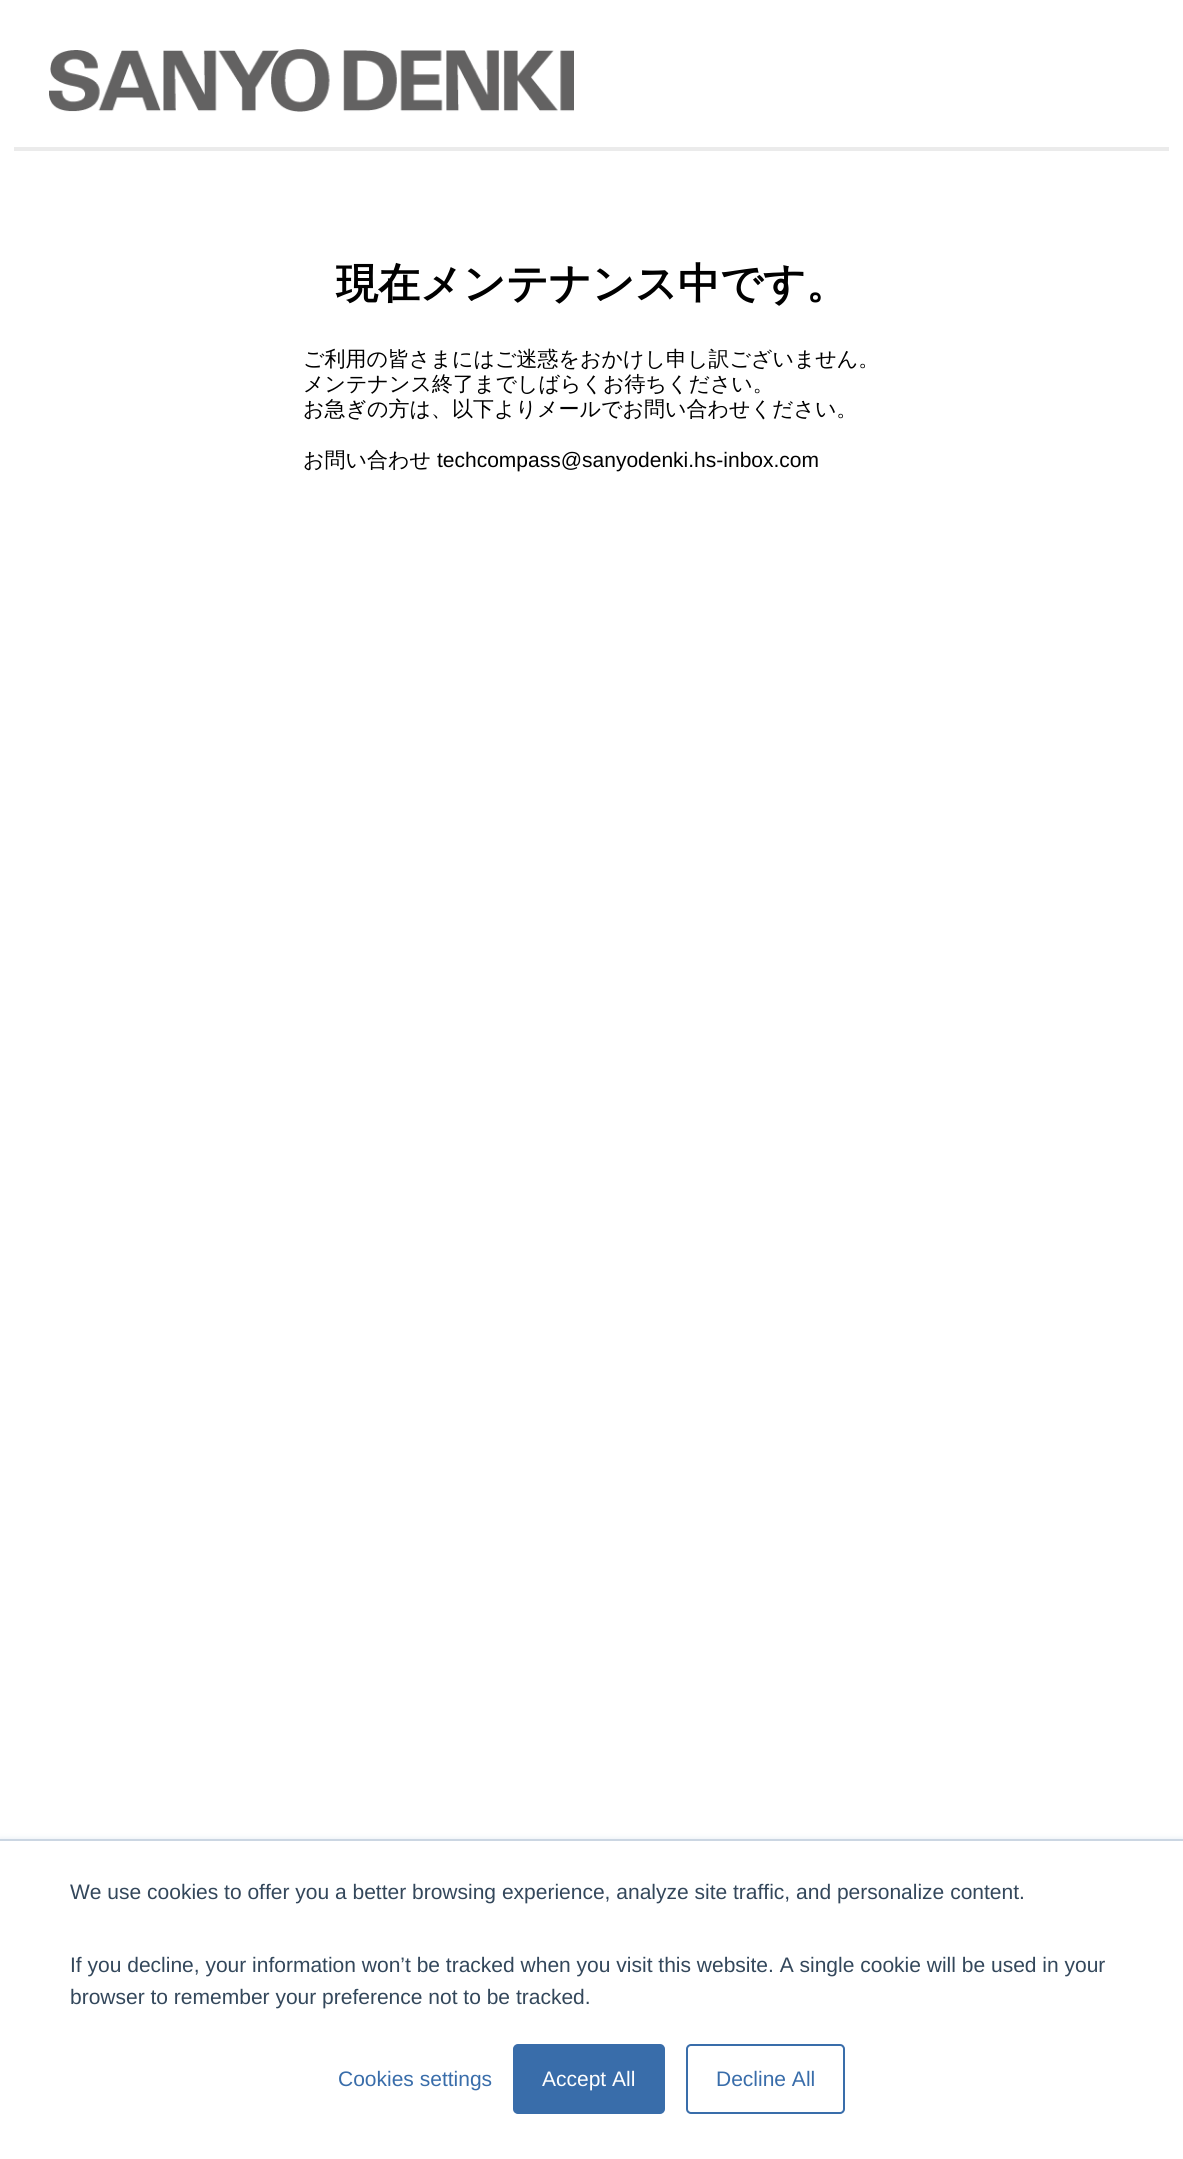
import math
import cairo

surface = cairo.ImageSurface(cairo.FORMAT_RGB24, 1183, 2159)
cr = cairo.Context(surface)
options = cairo.FontOptions()
options.set_hint_metrics(cairo.HINT_METRICS_OFF)
options.set_hint_style(cairo.HINT_STYLE_NONE)
cr.set_font_options(options)
cr.set_miter_limit(4)


def rgb(code):
    cr.set_source_rgb(*(v / 255 for v in bytes.fromhex(code[-6:])))


def rrect(x, y, w, h, r):
    cr.new_sub_path()
    for i, (u, v) in enumerate([(x + w - r, y + h - r), (x + r, y + h - r), (x + r, y + r), (x + w - r, y + r)]):
        cr.arc(u, v, r, i * math.pi / 2, (i + 1) * math.pi / 2)
    cr.close_path()


def soft_shadow(x, y, w, h, r, blur, alpha):
    cr.push_group_with_content(cairo.CONTENT_ALPHA)
    cr.set_operator(cairo.OPERATOR_SOURCE)
    for i in range(15, -16, -2):
        e = blur * i / 6
        if min(w, h) + 2 * e > 0:
            cr.set_source_rgba(0, 0, 0, alpha * math.erfc((i - 1) / 8.5) / 2)
            rrect(x - e, y - e, w + 2 * e, h + 2 * e, max(0, min(r + e + blur * .6, min(w, h) / 2 + e)))
            cr.fill()
    cr.mask(cr.pop_group())


def image(path, x, y, w, h):
    cr.save()
    cr.set_source_surface(cairo.ImageSurface.create_from_png(path), x, y)
    cr.rectangle(x, y, w, h)
    cr.fill()
    cr.restore()


rgb("#ffffff")
cr.paint()
rgb("#ebebeb")
cr.rectangle(14, 147, 1155, 4)
cr.fill()
image("img/1.png", 49, 49, 525, 63)
rgb("#eaf0f6")
soft_shadow(0, 1838, 1183, 320, 0, 2.5, 1)
rgb("#ffffff")
cr.rectangle(0, 1841, 1183, 318)
cr.fill()
rgb("#cbd6e2")
cr.rectangle(0, 1839, 1183, 2)
cr.fill()
rgb("#396daa")
rrect(514, 2045, 150, 68, 4)
cr.fill_preserve()
cr.stroke()
rrect(687, 2045, 157, 68, 4)
cr.stroke()
cr.select_font_face("WenQuanYi Zen Hei", cairo.FONT_SLANT_NORMAL, cairo.FONT_WEIGHT_BOLD)
cr.set_font_size(42)
rgb("#000000")
cr.move_to(336, 298)
cr.show_text("現在メンテナンス中です。")
cr.select_font_face("WenQuanYi Zen Hei Medium")
cr.set_font_size(21)
for x, y, s in [
    (303, 366, "ご利用の皆さまにはご迷惑をおかけし申し訳ございません。"),
    (303, 391, "メンテナンス終了までしばらくお待ちください。"),
    (303, 416, "お急ぎの方は、以下よりメールでお問い合わせください。"),
    (303, 467, "お問い合わせ"),
]:
    cr.move_to(x, y)
    cr.show_text(s)
cr.select_font_face("Liberation Sans")
cr.move_to(437, 467)
cr.show_text("techcompass@sanyodenki.hs-inbox.com")
rgb("#33475b")
for x, y, s in [
    (70, 1899, "We use cookies to offer you a better browsing experience, analyze site traffic, and personalize content."),
    (70, 1972, "If you decline, your information won’t be tracked when you visit this website. A single cookie will be used in your"),
    (70, 2004, "browser to remember your preference not to be tracked."),
]:
    cr.move_to(x, y)
    cr.show_text(s)
rgb("#396daa")
cr.move_to(338, 2086)
cr.show_text("Cookies settings")
rgb("#ffffff")
cr.move_to(542, 2086)
cr.show_text("Accept All")
rgb("#396daa")
cr.move_to(716, 2086)
cr.show_text("Decline All")
surface.write_to_png("page.png")
